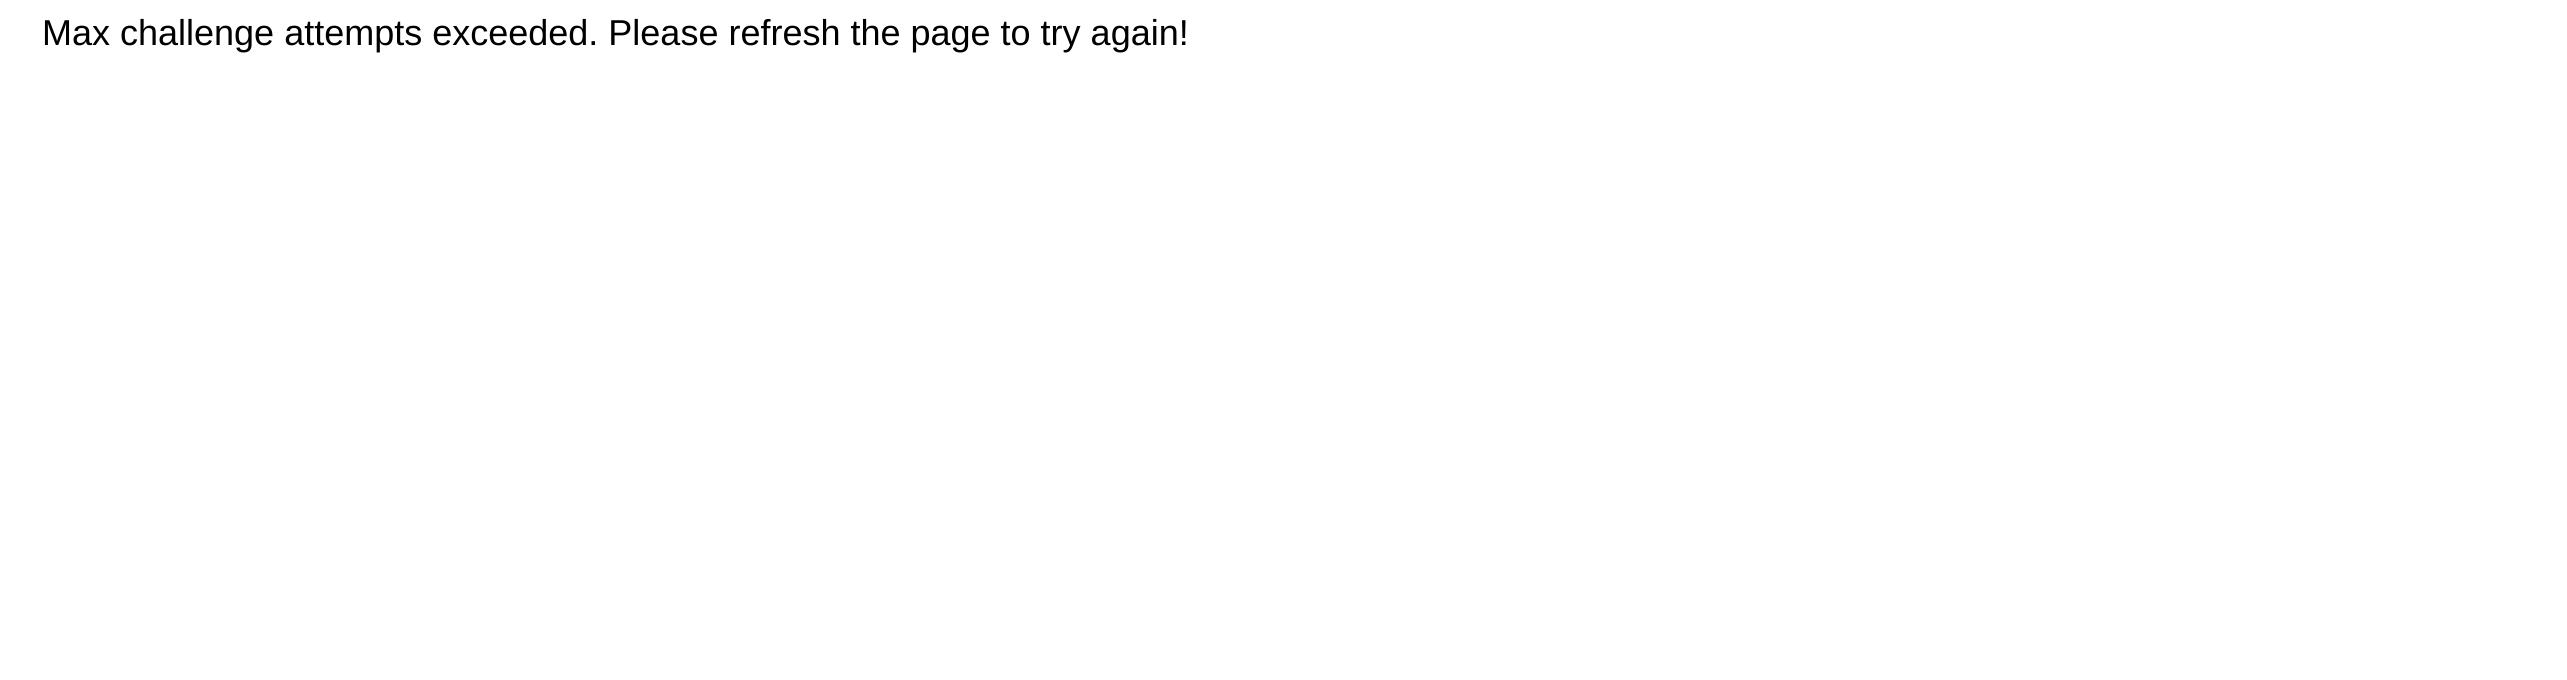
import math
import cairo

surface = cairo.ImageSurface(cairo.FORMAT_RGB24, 2567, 680)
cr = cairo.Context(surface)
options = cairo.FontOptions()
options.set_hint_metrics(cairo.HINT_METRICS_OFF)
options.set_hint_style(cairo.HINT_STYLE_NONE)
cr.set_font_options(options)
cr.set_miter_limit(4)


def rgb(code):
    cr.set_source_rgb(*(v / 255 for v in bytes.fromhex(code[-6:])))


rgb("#ffffff")
cr.paint()
cr.select_font_face("Liberation Sans")
cr.set_font_size(36)
rgb("#000000")
cr.move_to(42, 45)
cr.show_text("Max challenge attempts exceeded. Please refresh the page to try again!")
surface.write_to_png("page.png")
